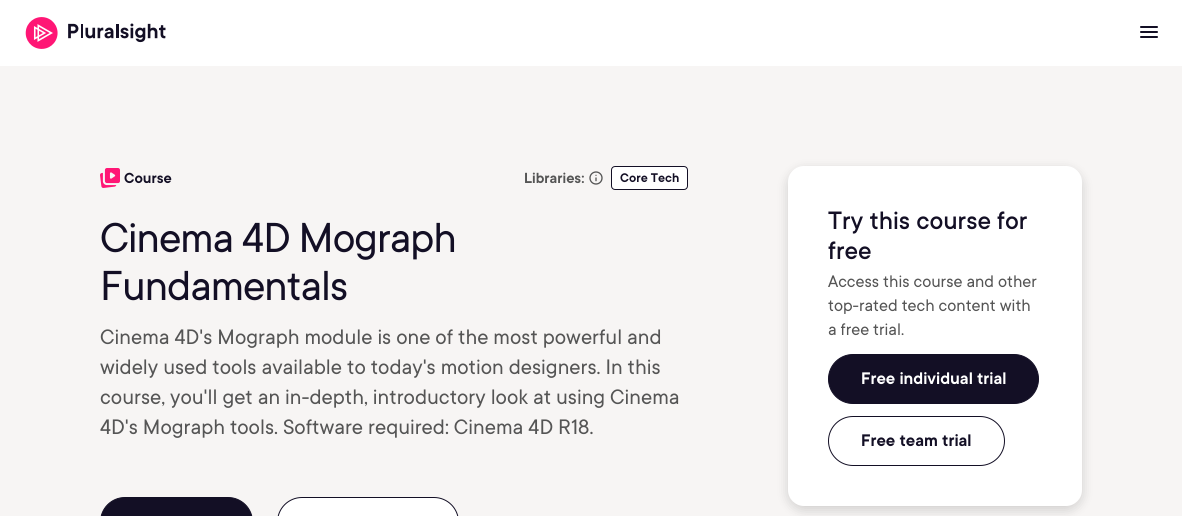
import math
import cairo

surface = cairo.ImageSurface(cairo.FORMAT_RGB24, 1182, 516)
cr = cairo.Context(surface)
options = cairo.FontOptions()
options.set_hint_metrics(cairo.HINT_METRICS_OFF)
options.set_hint_style(cairo.HINT_STYLE_NONE)
cr.set_font_options(options)
cr.set_miter_limit(4)


def rgb(code):
    cr.set_source_rgb(*(v / 255 for v in bytes.fromhex(code[-6:])))


def tracked(x, y, s, letter, word):
    cr.move_to(x, y)
    for ch in s:
        cr.show_text(ch)
        cr.rel_move_to(letter + word * (ch == ' '), 0)


def rrect(x, y, w, h, r):
    cr.new_sub_path()
    for i, (u, v) in enumerate([(x + w - r, y + h - r), (x + r, y + h - r), (x + r, y + r), (x + w - r, y + r)]):
        cr.arc(u, v, r, i * math.pi / 2, (i + 1) * math.pi / 2)
    cr.close_path()


def soft_shadow(x, y, w, h, r, blur, alpha):
    cr.push_group_with_content(cairo.CONTENT_ALPHA)
    cr.set_operator(cairo.OPERATOR_SOURCE)
    for i in range(15, -16, -2):
        e = blur * i / 6
        if min(w, h) + 2 * e > 0:
            cr.set_source_rgba(0, 0, 0, alpha * math.erfc((i - 1) / 8.5) / 2)
            rrect(x - e, y - e, w + 2 * e, h + 2 * e, max(0, min(r + e + blur * .6, min(w, h) / 2 + e)))
            cr.fill()
    cr.mask(cr.pop_group())


def image(path, x, y, w, h):
    cr.save()
    cr.set_source_surface(cairo.ImageSurface.create_from_png(path), x, y)
    cr.rectangle(x, y, w, h)
    cr.fill()
    cr.restore()


rgb("#ffffff")
cr.paint()
image("img/1.png", 25, 17, 33, 32)
image("img/2.png", 68, 23, 98, 20)
image("img/3.png", 1140, 26, 18, 12)
gradient = cairo.LinearGradient(591, 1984, 591, 66)
gradient.add_color_stop_rgba(0, 1, 1, 1, 1)
gradient.add_color_stop_rgba(0.49, 0.969, 0.961, 0.957, 1)
cr.set_source(gradient)
cr.rectangle(0, 66, 1182, 450)
cr.fill()
image("img/4.png", 100, 168, 20, 20)
image("img/5.png", 589, 171, 14, 14)
rgb("#ffffff")
rrect(611.5, 166.5, 76, 23, 3.5)
cr.fill_preserve()
rgb("#130f25")
cr.set_line_width(1)
cr.stroke()
rrect(100.5, 497.5, 152, 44, 24.5)
cr.fill_preserve()
cr.stroke()
rgb("#ffffff")
rrect(277.5, 497.5, 181, 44, 24.5)
cr.fill_preserve()
rgb("#130f25")
cr.stroke()
rgb("#000000")
soft_shadow(788, 170, 294, 340, 16, 6, 0.16)
rgb("#ffffff")
rrect(788, 166, 294, 340, 16)
cr.fill()
rgb("#130f25")
rrect(828.5, 354.5, 210, 49, 24.5)
cr.fill_preserve()
cr.stroke()
rrect(828.5, 416.5, 176, 49, 24.5)
cr.stroke()
cr.select_font_face("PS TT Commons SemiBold")
cr.set_font_size(14)
cr.move_to(124, 183)
cr.show_text("Course")
rgb("#555555")
cr.move_to(524, 183)
cr.show_text("Libraries:")
cr.set_font_size(12)
rgb("#130f25")
cr.move_to(620, 182)
cr.show_text("Core Tech")
cr.select_font_face("PS TT Commons")
cr.set_font_size(40)
tracked(100, 252, "Cinema 4D Mograph", -1, 0)
tracked(100, 300, "Fundamentals", -1, 0)
cr.set_font_size(20)
rgb("#555555")
for x, y, s in [
    (100, 344, "Cinema 4D's Mograph module is one of the most powerful and"),
    (100, 374, "widely used tools available to today's motion designers. In this"),
    (100, 404, "course, you'll get an in-depth, introductory look at using Cinema"),
    (100, 434, "4D's Mograph tools. Software required: Cinema 4D R18."),
]:
    cr.move_to(x, y)
    cr.show_text(s)
cr.select_font_face("PS TT Commons Medium")
cr.set_font_size(24)
rgb("#130f25")
cr.move_to(828, 229)
cr.show_text("Try this course for")
cr.move_to(828, 259)
cr.show_text("free")
cr.select_font_face("PS TT Commons")
cr.set_font_size(16)
rgb("#555555")
for x, y, s in [
    (828, 287, "Access this course and other"),
    (828, 311, "top-rated tech content with"),
    (828, 335, "a free trial."),
]:
    cr.move_to(x, y)
    cr.show_text(s)
cr.select_font_face("PS TT Commons SemiBold")
rgb("#ffffff")
cr.move_to(861, 384)
cr.show_text("Free individual trial")
rgb("#130f25")
cr.move_to(861, 446)
cr.show_text("Free team trial")
surface.write_to_png("page.png")
